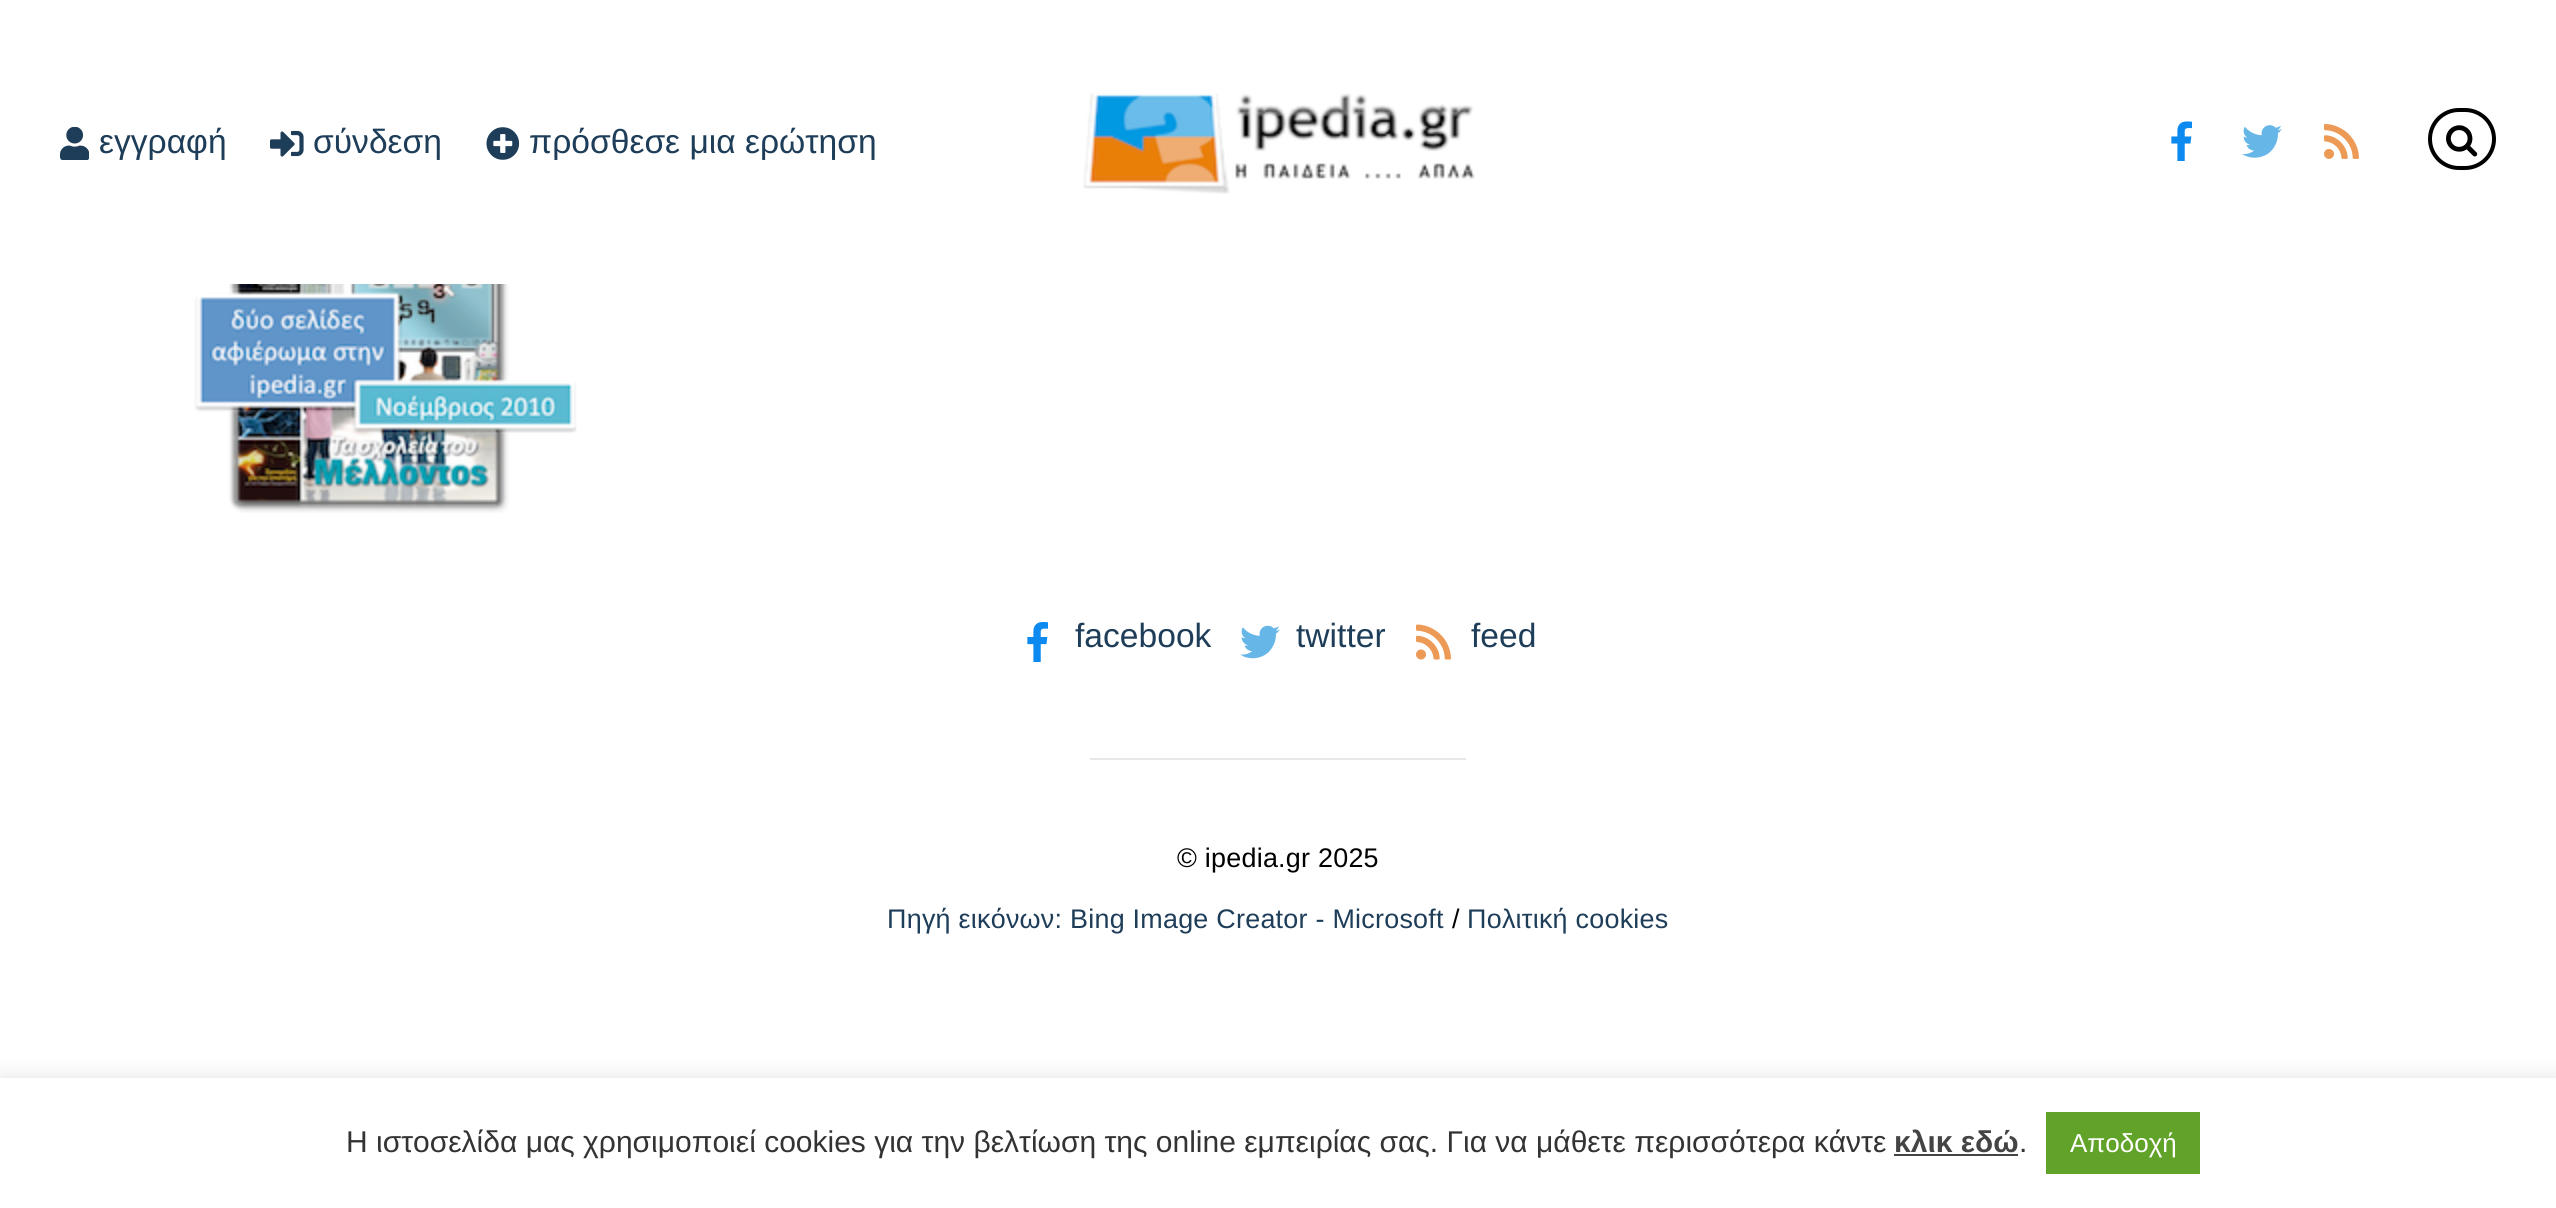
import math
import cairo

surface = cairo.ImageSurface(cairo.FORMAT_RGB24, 2556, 1208)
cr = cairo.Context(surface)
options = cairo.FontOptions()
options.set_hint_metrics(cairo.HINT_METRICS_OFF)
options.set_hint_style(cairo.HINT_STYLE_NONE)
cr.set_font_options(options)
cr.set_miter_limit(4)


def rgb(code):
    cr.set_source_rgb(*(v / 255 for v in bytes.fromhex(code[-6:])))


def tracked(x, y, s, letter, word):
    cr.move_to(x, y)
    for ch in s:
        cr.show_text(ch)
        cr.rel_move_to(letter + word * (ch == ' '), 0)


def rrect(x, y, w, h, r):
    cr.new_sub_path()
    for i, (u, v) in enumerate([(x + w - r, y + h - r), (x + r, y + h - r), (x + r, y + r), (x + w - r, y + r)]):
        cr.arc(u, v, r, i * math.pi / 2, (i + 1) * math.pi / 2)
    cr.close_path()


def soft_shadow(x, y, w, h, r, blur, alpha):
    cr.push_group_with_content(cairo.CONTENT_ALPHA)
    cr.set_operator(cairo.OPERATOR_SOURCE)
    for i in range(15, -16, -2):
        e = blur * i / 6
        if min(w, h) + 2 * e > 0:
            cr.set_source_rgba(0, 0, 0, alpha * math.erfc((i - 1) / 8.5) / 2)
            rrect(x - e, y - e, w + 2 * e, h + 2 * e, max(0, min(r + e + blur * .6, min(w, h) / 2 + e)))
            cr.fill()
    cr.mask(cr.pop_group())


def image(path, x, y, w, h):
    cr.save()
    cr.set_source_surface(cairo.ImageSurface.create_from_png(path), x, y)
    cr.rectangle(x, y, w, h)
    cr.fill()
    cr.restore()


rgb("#ffffff")
cr.paint()
image("img/1.png", 60, 127, 29, 33)
image("img/2.png", 270, 130, 34, 27)
image("img/3.png", 486, 127, 34, 33)
image("img/4.png", 2171, 121, 21, 40)
image("img/5.png", 2242, 125, 40, 33)
image("img/6.png", 2324, 123, 35, 36)
rrect(2430, 110, 64, 58, 29)
rgb("#000000")
cr.set_line_width(4)
cr.stroke()
image("img/7.png", 2446, 125, 32, 32)
image("img/8.png", 1083, 93, 392, 101)
image("img/9.png", 194, 284, 383, 229)
image("img/10.png", 1027, 622, 21, 40)
image("img/11.png", 1240, 625, 40, 34)
image("img/12.png", 1416, 624, 35, 36)
rgb("#e7e7e7")
cr.rectangle(1090, 758, 376, 2)
cr.fill()
rgb("#acabab")
soft_shadow(0, 1076, 2556, 130, 0, 10, 0.3)
for x, y, w, h, color in [
    (0, 1078, 2556, 130, "#ffffff"),
    (1894, 1154, 124, 2, "#444444"),
    (2046, 1112, 154, 62, "#61a229"),
]:
    rgb(color)
    cr.rectangle(x, y, w, h)
    cr.fill()
cr.select_font_face("Liberation Sans")
cr.set_font_size(33.6)
rgb("#1e3d59")
for x, y, s in [
    (99, 153, "εγγραφή"),
    (313, 153, "σύνδεση"),
    (529, 153, "πρόσθεσε μια ερώτηση"),
    (1075, 647, "facebook"),
    (1296, 647, "twitter"),
    (1471, 647, "feed"),
]:
    cr.move_to(x, y)
    cr.show_text(s)
cr.set_font_size(26.9)
rgb("#000000")
tracked(1177, 867, "© ipedia.gr 2025", 0.25, 0)
rgb("#1e3d59")
tracked(887, 928, "Πηγή εικόνων: Bing Image Creator - Microsoft", 0.25, 0)
rgb("#000000")
tracked(1452, 928, "/", 0.25, 0)
rgb("#1e3d59")
tracked(1467, 928, "Πολιτική cookies", 0.25, 0)
cr.set_font_size(30)
rgb("#333333")
cr.move_to(346, 1152)
cr.show_text("H ιστοσελίδα μας χρησιμοποιεί cookies για την βελτίωση της online εμπειρίας σας. Για να μάθετε περισσότερα κάντε")
cr.select_font_face("Liberation Sans", cairo.FONT_SLANT_NORMAL, cairo.FONT_WEIGHT_BOLD)
rgb("#444444")
cr.move_to(1894, 1152)
cr.show_text("κλικ εδώ")
cr.select_font_face("Liberation Sans")
rgb("#333333")
cr.move_to(2019, 1152)
cr.show_text(".")
cr.set_font_size(26)
rgb("#ffffff")
cr.move_to(2070, 1152)
cr.show_text("Αποδοχή")
surface.write_to_png("page.png")
